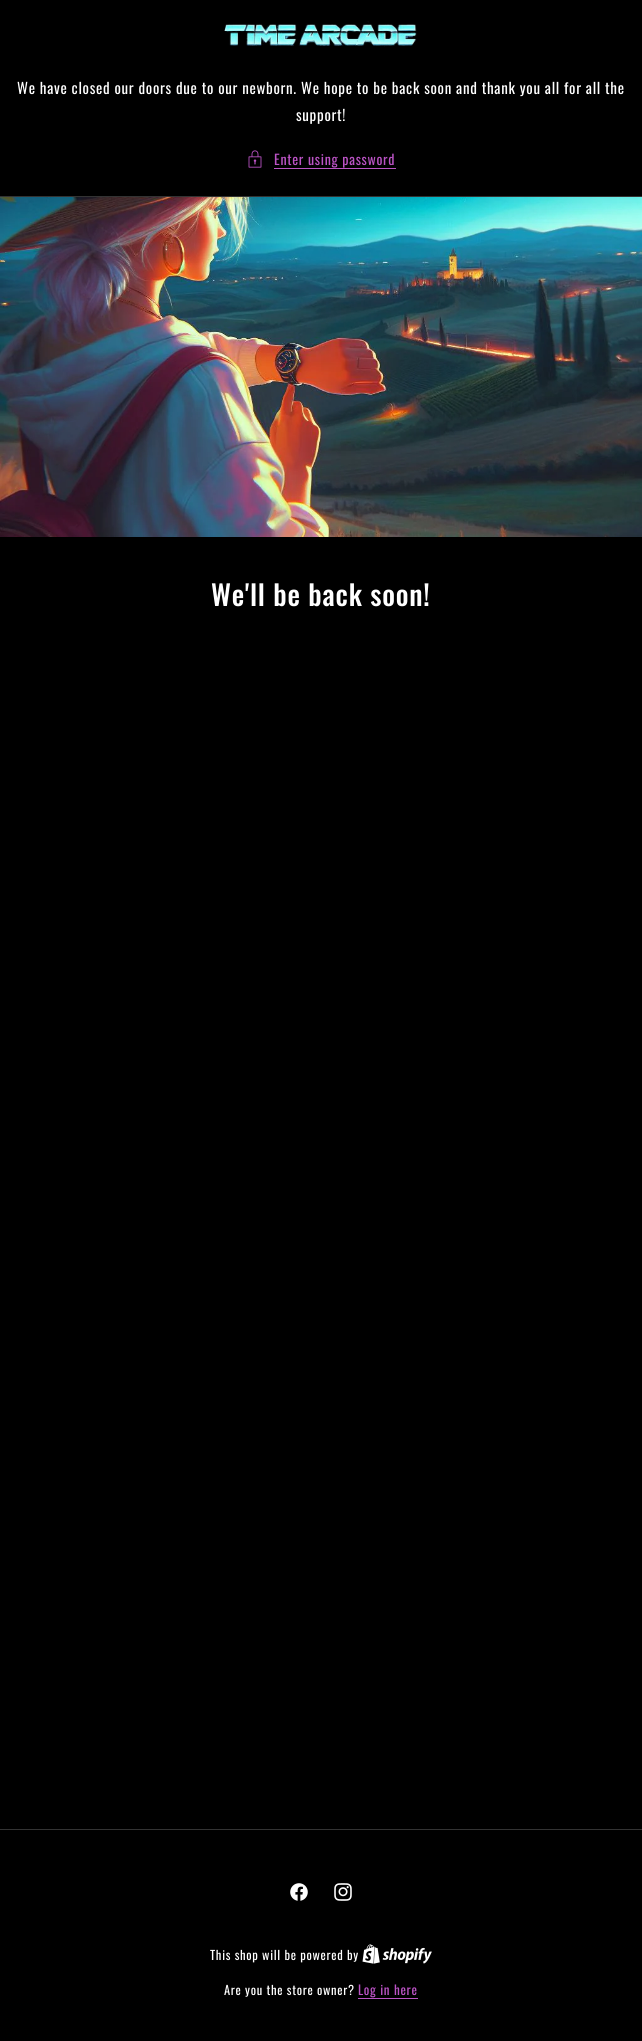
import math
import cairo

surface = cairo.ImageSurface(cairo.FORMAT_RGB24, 642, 2041)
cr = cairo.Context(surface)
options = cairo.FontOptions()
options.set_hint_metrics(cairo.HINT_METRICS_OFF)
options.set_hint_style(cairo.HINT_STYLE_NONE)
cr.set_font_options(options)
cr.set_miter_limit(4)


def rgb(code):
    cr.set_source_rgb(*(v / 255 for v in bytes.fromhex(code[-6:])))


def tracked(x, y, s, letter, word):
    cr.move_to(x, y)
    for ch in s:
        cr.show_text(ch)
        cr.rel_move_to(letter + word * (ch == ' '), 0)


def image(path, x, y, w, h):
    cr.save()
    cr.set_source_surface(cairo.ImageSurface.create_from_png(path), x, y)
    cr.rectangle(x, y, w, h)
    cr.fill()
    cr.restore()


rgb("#000000")
cr.paint()
image("img/1.png", 224, 21, 193, 26)
image("img/2.png", 248, 150, 14, 18)
rgb("#bb53c5")
cr.rectangle(274, 168, 122, 1)
cr.fill()
rgb("#333333")
cr.rectangle(0, 196, 642, 1)
cr.fill()
image("img/3.png", 0, 197, 642, 340)
cr.rectangle(0, 1829, 642, 1)
cr.fill()
image("img/4.png", 290, 1883, 18, 18)
image("img/5.png", 334, 1883, 18, 18)
image("img/6.png", 362, 1944, 70, 20)
rgb("#bb53c5")
cr.rectangle(358, 1998, 60, 1)
cr.fill()
cr.select_font_face("Oswald")
cr.set_font_size(15)
rgb("#ffffff")
tracked(17, 94, "We have closed our doors due to our newborn. We hope to be back soon and thank you all for all the", 0.7, 0)
tracked(296, 121, "support!", 0.7, 0)
cr.set_font_size(14)
rgb("#bb53c5")
tracked(274, 165, "Enter using password", 0.7, 0)
cr.select_font_face("Oswald Medium")
cr.set_font_size(28)
rgb("#ffffff")
tracked(211, 606, "We'll be back soon!", 0.8, 0)
cr.select_font_face("Oswald")
cr.set_font_size(12.5)
tracked(210, 1960, "This shop will be powered by", 0.7, 0)
tracked(224, 1995, "Are you the store owner?", 0.7, 0)
cr.set_font_size(13)
rgb("#bb53c5")
tracked(358, 1995, "Log in here", 0.7, 0)
surface.write_to_png("page.png")
